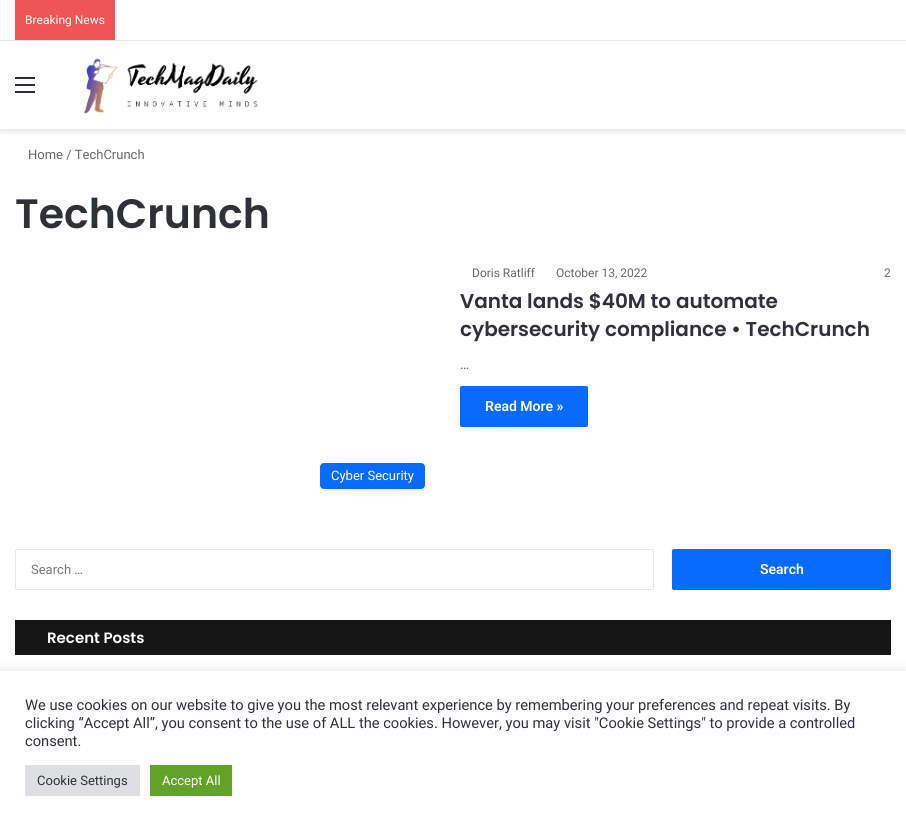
import math
import cairo

surface = cairo.ImageSurface(cairo.FORMAT_RGB24, 906, 826)
cr = cairo.Context(surface)
options = cairo.FontOptions()
options.set_hint_metrics(cairo.HINT_METRICS_OFF)
options.set_hint_style(cairo.HINT_STYLE_NONE)
cr.set_font_options(options)
cr.set_miter_limit(4)


def rgb(code):
    cr.set_source_rgb(*(v / 255 for v in bytes.fromhex(code[-6:])))


def rrect(x, y, w, h, r):
    cr.new_sub_path()
    for i, (u, v) in enumerate([(x + w - r, y + h - r), (x + r, y + h - r), (x + r, y + r), (x + w - r, y + r)]):
        cr.arc(u, v, r, i * math.pi / 2, (i + 1) * math.pi / 2)
    cr.close_path()


def soft_shadow(x, y, w, h, r, blur, alpha):
    cr.push_group_with_content(cairo.CONTENT_ALPHA)
    cr.set_operator(cairo.OPERATOR_SOURCE)
    for i in range(15, -16, -2):
        e = blur * i / 6
        if min(w, h) + 2 * e > 0:
            cr.set_source_rgba(0, 0, 0, alpha * math.erfc((i - 1) / 8.5) / 2)
            rrect(x - e, y - e, w + 2 * e, h + 2 * e, max(0, min(r + e + blur * .6, min(w, h) / 2 + e)))
            cr.fill()
    cr.mask(cr.pop_group())


def image(path, x, y, w, h):
    cr.save()
    cr.set_source_surface(cairo.ImageSurface.create_from_png(path), x, y)
    cr.rectangle(x, y, w, h)
    cr.fill()
    cr.restore()


rgb("#ffffff")
cr.paint()
cr.save()
cr.rectangle(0, 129, 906, 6)
cr.clip()
rgb("#000000")
soft_shadow(0, 44, 906, 88, 0, 3.5, 0.1)
cr.restore()
for x, y, w, h, color in [
    (0, 40, 906, 1, "#e6e6e6"),
    (15, 0, 100, 40, "#f05555"),
    (15, 84, 20, 2, "#2c2f34"),
    (15, 77, 20, 2, "#2c2f34"),
    (15, 91, 20, 2, "#2c2f34"),
]:
    rgb(color)
    cr.rectangle(x, y, w, h)
    cr.fill()
image("img/1.png", 84, 58, 174, 56)
rgb("#086bff")
rrect(460, 386, 128, 41, 2)
cr.fill()
rrect(320, 463, 105, 26, 4)
cr.fill()
rrect(15.5, 549.5, 638, 40, 1.5)
rgb("#e6e6e6")
cr.set_line_width(1)
cr.stroke()
rgb("#086bff")
rrect(672, 549, 219, 41, 2)
cr.fill()
rgb("#161616")
cr.rectangle(15, 620, 876, 35)
cr.fill()
rgb("#acabab")
soft_shadow(0, 670, 906, 155, 0, 5, 0.3)
for x, y, w, h, color in [
    (0, 671, 906, 155, "#ffffff"),
    (25, 765, 115, 31, "#dedfe0"),
    (150, 765, 82, 31, "#61a229"),
]:
    rgb(color)
    cr.rectangle(x, y, w, h)
    cr.fill()
cr.select_font_face("Roboto")
cr.set_font_size(12)
rgb("#ffffff")
cr.move_to(25, 24)
cr.show_text("Breaking News")
cr.set_font_size(13)
rgb("#686868")
cr.move_to(28, 159)
cr.show_text("Home / TechCrunch")
cr.select_font_face("Poppins SemiBold")
cr.set_font_size(41)
rgb("#2e3136")
cr.move_to(15, 228)
cr.show_text("TechCrunch")
cr.select_font_face("Roboto")
cr.set_font_size(12)
rgb("#686868")
for x, y, s in [
    (472, 277, "Doris Ratliff"),
    (556, 277, "October 13, 2022"),
    (884, 277, "2"),
]:
    cr.move_to(x, y)
    cr.show_text(s)
cr.select_font_face("Poppins SemiBold")
cr.set_font_size(20)
rgb("#2e3136")
cr.move_to(460, 308)
cr.show_text("Vanta lands $40M to automate")
cr.move_to(460, 336)
cr.show_text("cybersecurity compliance • TechCrunch")
cr.select_font_face("Roboto")
cr.set_font_size(14)
rgb("#686868")
cr.move_to(460, 369)
cr.show_text("…")
cr.select_font_face("Roboto SemiBold")
rgb("#ffffff")
cr.move_to(485, 411)
cr.show_text("Read More »")
cr.select_font_face("Roboto")
cr.set_font_size(13)
cr.move_to(331, 480)
cr.show_text("Cyber Security")
rgb("#767676")
cr.move_to(31, 574)
cr.show_text("Search …")
cr.select_font_face("Roboto SemiBold")
cr.set_font_size(14)
rgb("#ffffff")
cr.move_to(760, 574)
cr.show_text("Search")
cr.select_font_face("Poppins SemiBold")
cr.set_font_size(15)
cr.move_to(47, 643)
cr.show_text("Recent Posts")
cr.select_font_face("Roboto")
cr.set_font_size(14.67)
rgb("#2e3136")
for x, y, s in [
    (25, 710, "We use cookies on our website to give you the most relevant experience by remembering your preferences and repeat visits. By"),
    (25, 728, "clicking “Accept All”, you consent to the use of ALL the cookies. However, you may visit \"Cookie Settings\" to provide a controlled"),
    (25, 746, "consent."),
]:
    cr.move_to(x, y)
    cr.show_text(s)
cr.set_font_size(13)
cr.move_to(37, 785)
cr.show_text("Cookie Settings")
rgb("#ffffff")
cr.move_to(162, 785)
cr.show_text("Accept All")
surface.write_to_png("page.png")
